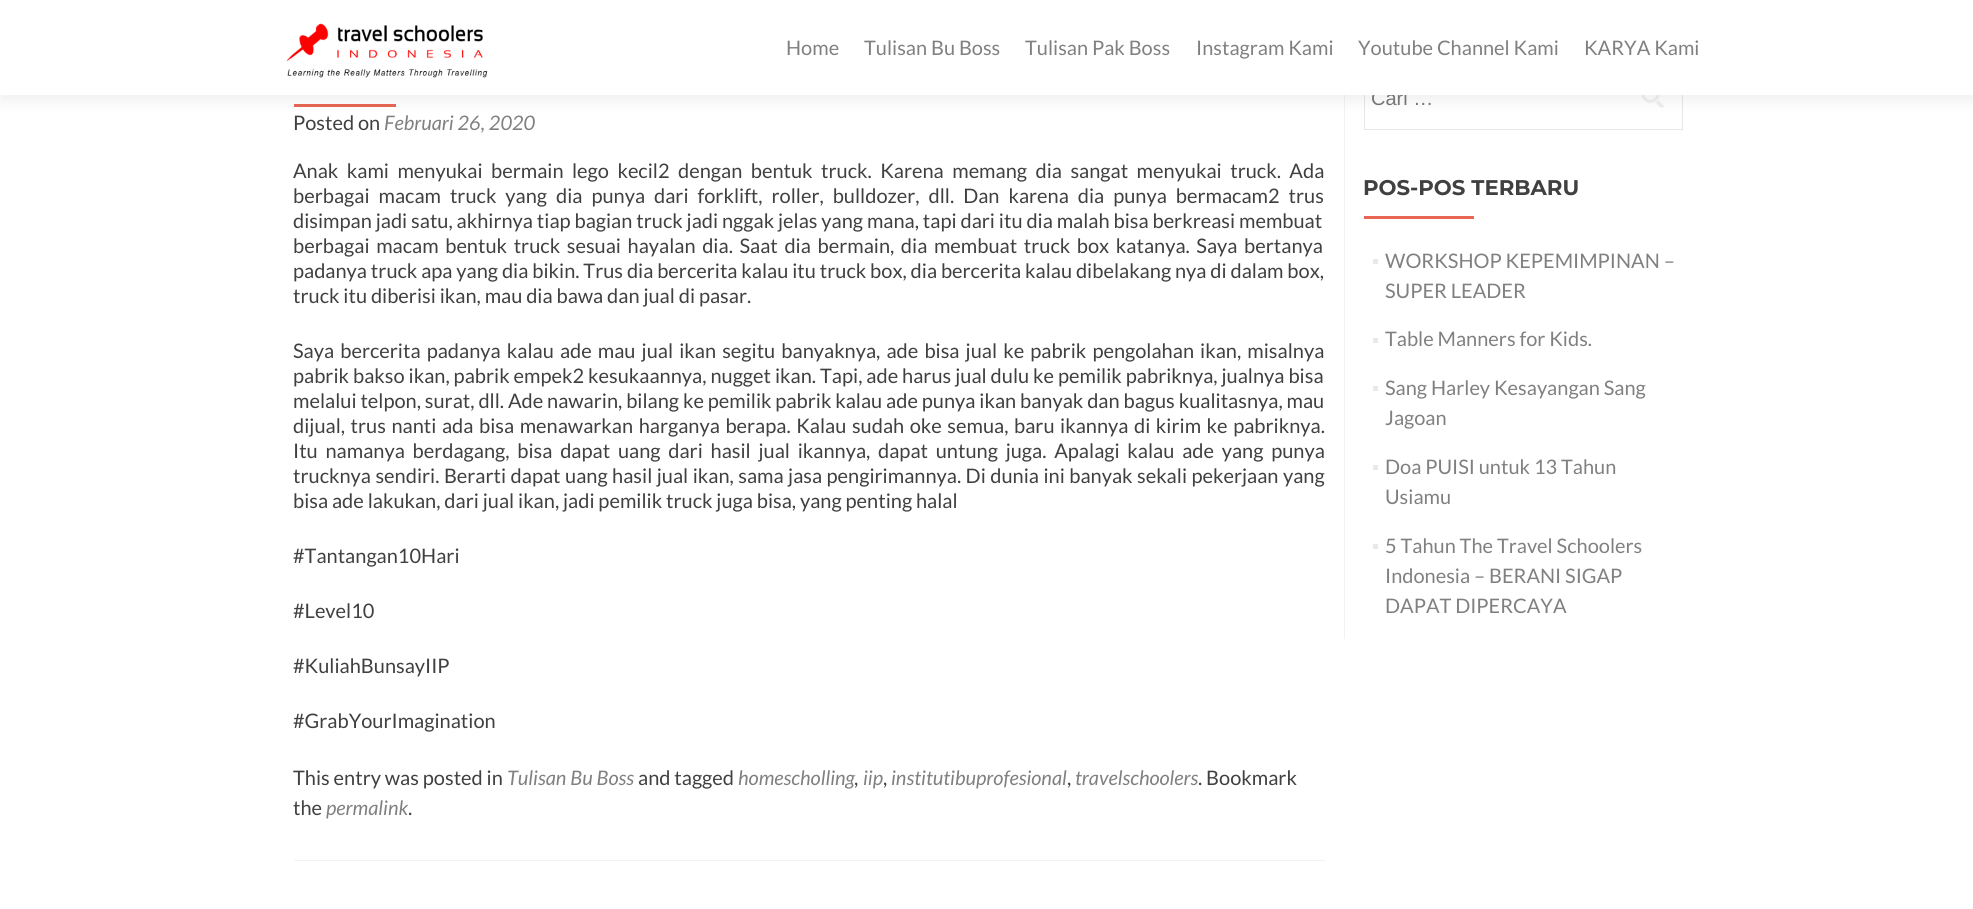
import math
import cairo

surface = cairo.ImageSurface(cairo.FORMAT_RGB24, 1973, 909)
cr = cairo.Context(surface)
options = cairo.FontOptions()
options.set_hint_metrics(cairo.HINT_METRICS_OFF)
options.set_hint_style(cairo.HINT_STYLE_NONE)
cr.set_font_options(options)
cr.set_miter_limit(4)


def rgb(code):
    cr.set_source_rgb(*(v / 255 for v in bytes.fromhex(code[-6:])))


def tracked(x, y, s, letter, word):
    cr.move_to(x, y)
    for ch in s:
        cr.show_text(ch)
        cr.rel_move_to(letter + word * (ch == ' '), 0)


def rrect(x, y, w, h, r):
    cr.new_sub_path()
    for i, (u, v) in enumerate([(x + w - r, y + h - r), (x + r, y + h - r), (x + r, y + r), (x + w - r, y + r)]):
        cr.arc(u, v, r, i * math.pi / 2, (i + 1) * math.pi / 2)
    cr.close_path()


def soft_shadow(x, y, w, h, r, blur, alpha):
    cr.push_group_with_content(cairo.CONTENT_ALPHA)
    cr.set_operator(cairo.OPERATOR_SOURCE)
    for i in range(15, -16, -2):
        e = blur * i / 6
        if min(w, h) + 2 * e > 0:
            cr.set_source_rgba(0, 0, 0, alpha * math.erfc((i - 1) / 8.5) / 2)
            rrect(x - e, y - e, w + 2 * e, h + 2 * e, max(0, min(r + e + blur * .6, min(w, h) / 2 + e)))
            cr.fill()
    cr.mask(cr.pop_group())


def image(path, x, y, w, h):
    cr.save()
    cr.set_source_surface(cairo.ImageSurface.create_from_png(path), x, y)
    cr.rectangle(x, y, w, h)
    cr.fill()
    cr.restore()


rgb("#ffffff")
cr.paint()
rgb("#e96656")
cr.rectangle(294, 104, 102, 3)
cr.fill()
rgb("#f2f2f2")
cr.rectangle(1344, 95, 1, 544)
cr.fill()
cr.rectangle(1364.5, 68.5, 318, 61)
rgb("#e6e6e6")
cr.set_line_width(1)
cr.stroke()
image("img/2.png", 1641, 95, 23, 13)
rgb("#323232")
soft_shadow(0, 6, 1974, 95, 0, 7, 0.08)
for x, y, w, h, color in [
    (294, 860, 1031, 1, "#f2f2f2"),
    (1364, 216, 110, 3, "#e96656"),
    (1373, 259, 5, 5, "#e9e9e9"),
    (1373, 338, 5, 5, "#e9e9e9"),
    (1373, 386, 5, 5, "#e9e9e9"),
    (1373, 465, 5, 5, "#e9e9e9"),
    (1373, 544, 5, 5, "#e9e9e9"),
]:
    rgb(color)
    cr.rectangle(x, y, w, h)
    cr.fill()
cr.select_font_face("Lato")
cr.set_font_size(20)
rgb("#404040")
cr.move_to(293, 130)
cr.show_text("Posted on")
cr.select_font_face("Lato", cairo.FONT_SLANT_ITALIC)
rgb("#808080")
cr.move_to(384, 130)
cr.show_text("Februari 26, 2020")
cr.select_font_face("Lato")
rgb("#404040")
tracked(293, 178, "Anak kami menyukai bermain lego kecil2 dengan bentuk truck. Karena memang dia sangat menyukai truck. Ada", 0, 4.6)
tracked(293, 203, "berbagai macam truck yang dia punya dari forklift, roller, bulldozer, dll. Dan karena dia punya bermacam2 trus", 0, 5.1)
cr.move_to(293, 228)
cr.show_text("disimpan jadi satu, akhirnya tiap bagian truck jadi nggak jelas yang mana, tapi dari itu dia malah bisa berkreasi membuat")
tracked(293, 253, "berbagai macam bentuk truck sesuai hayalan dia. Saat dia bermain, dia membuat truck box katanya. Saya bertanya", 0, 2.75)
cr.move_to(293, 278)
cr.show_text("padanya truck apa yang dia bikin. Trus dia bercerita kalau itu truck box, dia bercerita kalau dibelakang nya di dalam box,")
cr.move_to(293, 303)
cr.show_text("truck itu diberisi ikan, mau dia bawa dan jual di pasar.")
tracked(293, 358, "Saya bercerita padanya kalau ade mau jual ikan segitu banyaknya, ade bisa jual ke pabrik pengolahan ikan, misalnya", 0, 2.25)
tracked(293, 383, "pabrik bakso ikan, pabrik empek2 kesukaannya, nugget ikan. Tapi, ade harus jual dulu ke pemilik pabriknya, jualnya bisa", 0, 0.1)
cr.move_to(293, 408)
cr.show_text("melalui telpon, surat, dll. Ade nawarin, bilang ke pemilik pabrik kalau ade punya ikan banyak dan bagus kualitasnya, mau")
tracked(293, 433, "dijual, trus nanti ada bisa menawarkan harganya berapa. Kalau sudah oke semua, baru ikannya di kirim ke pabriknya.", 0, 1.7)
tracked(293, 458, "Itu namanya berdagang, bisa dapat uang dari hasil jual ikannya, dapat untung juga. Apalagi kalau ade yang punya", 0, 3.9)
tracked(293, 483, "trucknya sendiri. Berarti dapat uang hasil jual ikan, sama jasa pengirimannya. Di dunia ini banyak sekali pekerjaan yang", 0, 0.6)
for x, y, s in [
    (293, 508, "bisa ade lakukan, dari jual ikan, jadi pemilik truck juga bisa, yang penting halal"),
    (293, 563, "#Tantangan10Hari"),
    (293, 618, "#Level10"),
    (293, 673, "#KuliahBunsayIIP"),
    (293, 728, "#GrabYourImagination"),
    (293, 785, "This entry was posted in"),
]:
    cr.move_to(x, y)
    cr.show_text(s)
cr.select_font_face("Lato", cairo.FONT_SLANT_ITALIC)
rgb("#808080")
cr.move_to(507, 785)
cr.show_text("Tulisan Bu Boss")
cr.select_font_face("Lato")
rgb("#404040")
cr.move_to(638, 785)
cr.show_text("and tagged")
cr.select_font_face("Lato", cairo.FONT_SLANT_ITALIC)
rgb("#808080")
cr.move_to(738, 785)
cr.show_text("homescholling")
cr.select_font_face("Lato")
rgb("#404040")
cr.move_to(854, 785)
cr.show_text(",")
cr.select_font_face("Lato", cairo.FONT_SLANT_ITALIC)
rgb("#808080")
cr.move_to(863, 785)
cr.show_text("iip")
cr.select_font_face("Lato")
rgb("#404040")
cr.move_to(883, 785)
cr.show_text(",")
cr.select_font_face("Lato", cairo.FONT_SLANT_ITALIC)
rgb("#808080")
cr.move_to(891, 785)
cr.show_text("institutibuprofesional")
cr.select_font_face("Lato")
rgb("#404040")
cr.move_to(1067, 785)
cr.show_text(",")
cr.select_font_face("Lato", cairo.FONT_SLANT_ITALIC)
rgb("#808080")
cr.move_to(1075, 785)
cr.show_text("travelschoolers")
cr.select_font_face("Lato")
rgb("#404040")
cr.move_to(1198, 785)
cr.show_text(". Bookmark")
cr.move_to(293, 815)
cr.show_text("the")
cr.select_font_face("Lato", cairo.FONT_SLANT_ITALIC)
rgb("#808080")
cr.move_to(326, 815)
cr.show_text("permalink")
cr.select_font_face("Lato")
rgb("#404040")
cr.move_to(408, 815)
cr.show_text(".")
cr.select_font_face("Liberation Sans")
rgb("#757575")
cr.move_to(1371, 105)
cr.show_text("Cari …")
rgb("#ffffff")
cr.rectangle(0, 0, 1973, 95)
cr.fill()
cr.select_font_face("Lato")
rgb("#808080")
for x, y, s in [
    (1584, 55, "KARYA Kami"),
    (1358, 55, "Youtube Channel Kami"),
    (1196, 55, "Instagram Kami"),
    (1025, 55, "Tulisan Pak Boss"),
    (864, 55, "Tulisan Bu Boss"),
    (786, 55, "Home"),
]:
    cr.move_to(x, y)
    cr.show_text(s)
image("img/1.png", 286, 23, 202, 55)
cr.select_font_face("Montserrat Thin")
cr.set_font_size(21.25)
rgb("#404040")
cr.move_to(1363, 195)
cr.show_text("POS-POS TERBARU")
cr.select_font_face("Lato")
cr.set_font_size(20)
rgb("#808080")
for x, y, s in [
    (1385, 268, "WORKSHOP KEPEMIMPINAN –"),
    (1385, 298, "SUPER LEADER"),
    (1385, 346, "Table Manners for Kids."),
    (1385, 395, "Sang Harley Kesayangan Sang"),
    (1385, 425, "Jagoan"),
    (1385, 474, "Doa PUISI untuk 13 Tahun"),
    (1385, 504, "Usiamu"),
    (1385, 553, "5 Tahun The Travel Schoolers"),
    (1385, 583, "Indonesia – BERANI SIGAP"),
    (1385, 613, "DAPAT DIPERCAYA"),
]:
    cr.move_to(x, y)
    cr.show_text(s)
surface.write_to_png("page.png")
